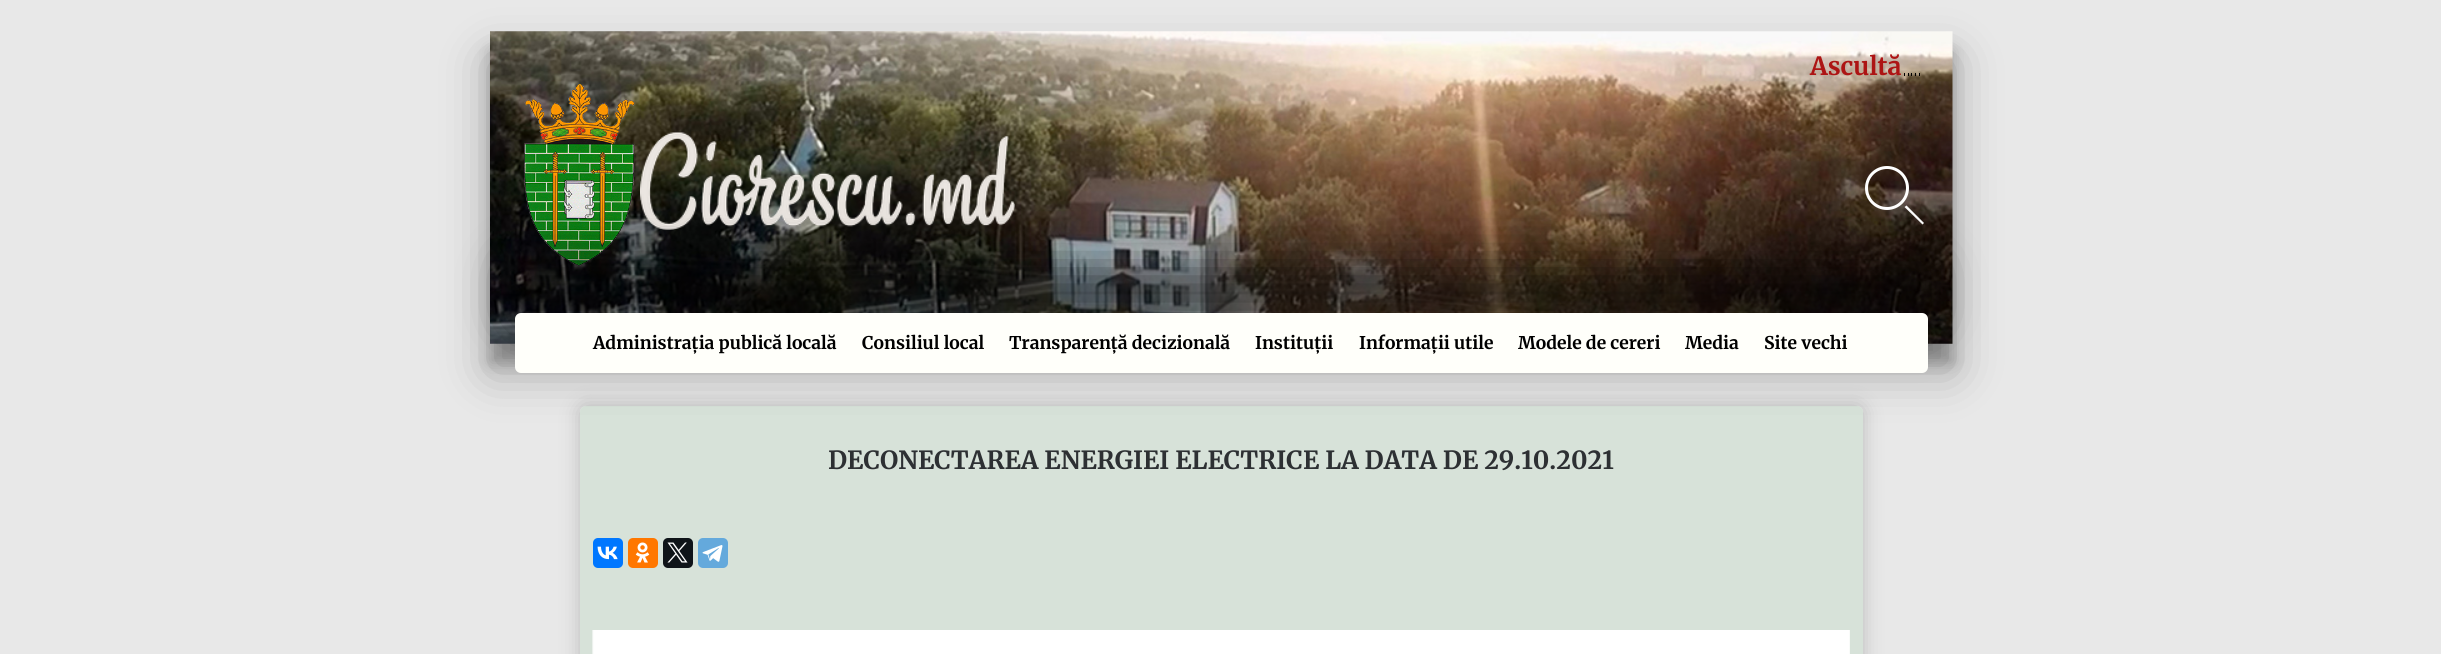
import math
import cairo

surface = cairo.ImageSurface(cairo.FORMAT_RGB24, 2441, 654)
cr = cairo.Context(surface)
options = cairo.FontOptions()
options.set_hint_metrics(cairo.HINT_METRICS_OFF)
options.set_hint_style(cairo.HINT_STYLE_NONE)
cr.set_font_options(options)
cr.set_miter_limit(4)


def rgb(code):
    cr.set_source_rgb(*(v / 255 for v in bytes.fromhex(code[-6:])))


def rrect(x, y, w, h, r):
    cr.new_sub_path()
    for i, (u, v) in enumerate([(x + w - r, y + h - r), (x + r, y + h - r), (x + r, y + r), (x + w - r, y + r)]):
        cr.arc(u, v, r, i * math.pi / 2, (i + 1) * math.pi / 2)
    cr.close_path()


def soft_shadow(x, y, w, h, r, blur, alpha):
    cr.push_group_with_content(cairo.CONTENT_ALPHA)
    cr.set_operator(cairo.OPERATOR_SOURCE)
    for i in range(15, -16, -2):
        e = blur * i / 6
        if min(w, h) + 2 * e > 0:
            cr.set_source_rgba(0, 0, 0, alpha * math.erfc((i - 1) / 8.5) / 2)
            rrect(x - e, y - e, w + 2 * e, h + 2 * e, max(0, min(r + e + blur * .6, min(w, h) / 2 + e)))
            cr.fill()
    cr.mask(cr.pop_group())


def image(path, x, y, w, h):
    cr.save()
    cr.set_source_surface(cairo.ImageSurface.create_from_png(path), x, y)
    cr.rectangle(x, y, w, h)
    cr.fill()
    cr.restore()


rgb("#e8e8e8")
cr.paint()
rgb("#000000")
soft_shadow(490, 50, 1463, 313, 0, 7.5, 0.22)
soft_shadow(490, 59, 1463, 312, 0, 24, 0.3)
image("img/1.png", 490, 31, 1463, 313)
for x, y, w, h, color in [
    (1904, 73, 1, 3, "#000000"),
    (1908, 73, 1, 3, "#000000"),
    (1911, 73, 1, 3, "#000000"),
    (1915, 73, 1, 3, "#000000"),
    (1919, 73, 1, 3, "#000000"),
]:
    rgb(color)
    cr.rectangle(x, y, w, h)
    cr.fill()
image("img/2.png", 524, 84, 111, 182)
image("img/3.png", 640, 131, 375, 99)
cr.arc(1887, 188, 20.5, 0, 2 * math.pi)
rgb("#ffffff")
cr.set_line_width(3)
cr.stroke()
cr.new_path()
cr.move_to(1906.5, 205.5)
cr.line_to(1924, 223)
cr.line_to(1922.5, 224.5)
cr.line_to(1904.5, 207)
cr.close_path()
cr.fill()
rgb("#000000")
soft_shadow(515, 263, 1413, 60, 6, 24.5, 0.6)
rgb("#fffffa")
rrect(515, 313, 1413, 60, 6)
cr.fill()
cr.save()
cr.set_fill_rule(cairo.FILL_RULE_EVEN_ODD)
cr.new_path()
cr.move_to(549, 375)
cr.line_to(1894, 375)
cr.line_to(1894, 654)
cr.line_to(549, 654)
cr.close_path()
cr.move_to(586, 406)
cr.line_to(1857, 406)
cr.curve_to(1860.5, 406, 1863, 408.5, 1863, 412)
cr.line_to(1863, 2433)
cr.curve_to(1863, 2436.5, 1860.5, 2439, 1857, 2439)
cr.line_to(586, 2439)
cr.curve_to(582.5, 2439, 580, 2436.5, 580, 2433)
cr.line_to(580, 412)
cr.curve_to(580, 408.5, 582.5, 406, 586, 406)
cr.close_path()
cr.clip()
rgb("#000000")
soft_shadow(580, 406, 1283, 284, 6, 10, 0.2)
cr.restore()
cr.set_source_rgba(0.49, 0.78, 0.525, 0.15)
rrect(580, 406, 1283, 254, 6)
cr.fill()
rgb("#0077ff")
rrect(593, 538, 30, 30, 5)
cr.fill()
image("img/4.png", 597, 546, 21, 14)
rgb("#ff7700")
rrect(628, 538, 30, 30, 5)
cr.fill()
image("img/5.png", 635, 542, 15, 21)
rgb("#0f1419")
rrect(663, 538, 30, 30, 5)
cr.fill()
image("img/6.png", 667, 542, 21, 21)
rgb("#64a9dc")
rrect(698, 538, 30, 30, 5)
cr.fill()
image("img/7.png", 702, 545, 21, 17)
image("img/8.png", 592, 630, 1258, 24)
cr.select_font_face("Merriweather", cairo.FONT_SLANT_NORMAL, cairo.FONT_WEIGHT_BOLD)
cr.set_font_size(25)
rgb("#ad1414")
cr.move_to(1810, 75)
cr.show_text("Ascultă")
cr.set_font_size(17.5)
rgb("#000000")
for x, y, s in [
    (593, 349, "Administrația publică locală"),
    (862, 349, "Consiliul local"),
    (1009, 349, "Transparență decizională"),
    (1255, 349, "Instituții"),
    (1359, 349, "Informații utile"),
    (1518, 349, "Modele de cereri"),
    (1685, 349, "Media"),
    (1764, 349, "Site vechi"),
]:
    cr.move_to(x, y)
    cr.show_text(s)
cr.set_font_size(25)
rgb("#2d3033")
cr.move_to(828, 469)
cr.show_text("DECONECTAREA ENERGIEI ELECTRICE LA DATA DE 29.10.2021")
surface.write_to_png("page.png")
